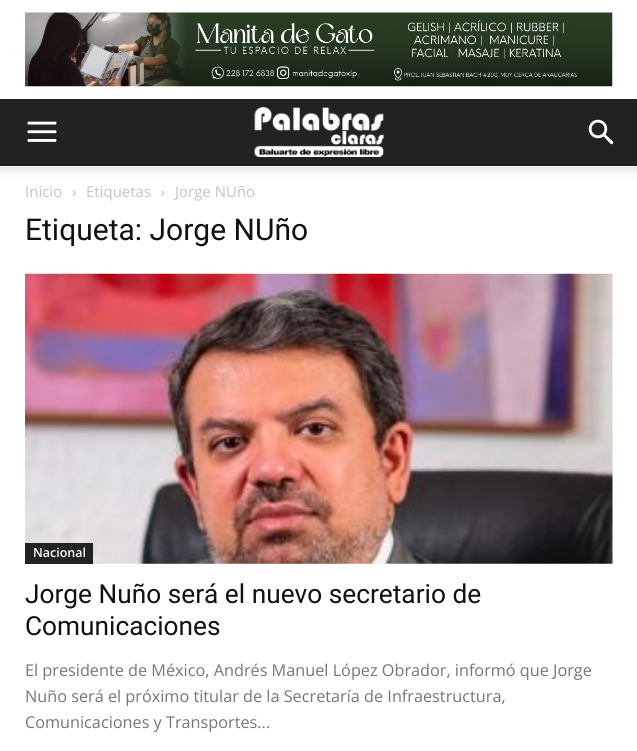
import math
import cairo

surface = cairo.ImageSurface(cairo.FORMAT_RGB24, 637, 751)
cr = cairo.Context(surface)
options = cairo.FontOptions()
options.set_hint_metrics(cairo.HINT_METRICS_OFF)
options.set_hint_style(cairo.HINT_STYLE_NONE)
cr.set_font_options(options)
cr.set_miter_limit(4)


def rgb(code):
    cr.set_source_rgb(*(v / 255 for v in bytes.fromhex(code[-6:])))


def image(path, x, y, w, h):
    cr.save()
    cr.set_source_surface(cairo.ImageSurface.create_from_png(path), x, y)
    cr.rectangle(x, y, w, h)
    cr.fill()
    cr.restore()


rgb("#ffffff")
cr.paint()
image("img/1.png", 25, 12, 588, 75)
rgb("#222222")
cr.rectangle(0, 99, 637, 67)
cr.fill()
image("img/2.png", 27, 121, 30, 21)
image("img/3.png", 254, 107, 130, 50)
image("img/4.png", 588, 119, 26, 26)
image("img/5.png", 0, 166, 637, 11)
image("img/6.png", 72, 190, 4, 6)
image("img/7.png", 161, 190, 4, 6)
image("img/8.png", 25, 273, 588, 291)
cr.rectangle(25, 543, 68, 21)
cr.fill()
cr.select_font_face("Open Sans")
cr.set_font_size(15)
rgb("#c3c3c3")
for x, y, s in [
    (25, 197, "Inicio"),
    (86, 197, "Etiquetas"),
    (175, 197, "Jorge NUño"),
]:
    cr.move_to(x, y)
    cr.show_text(s)
cr.select_font_face("Roboto")
cr.set_font_size(30)
rgb("#111111")
cr.move_to(25, 240)
cr.show_text("Etiqueta: Jorge NUño")
cr.select_font_face("Open Sans SemiBold")
cr.set_font_size(12.5)
rgb("#ffffff")
cr.move_to(33, 557)
cr.show_text("Nacional")
cr.select_font_face("Roboto")
cr.set_font_size(26.25)
rgb("#111111")
cr.move_to(25, 603)
cr.show_text("Jorge Nuño será el nuevo secretario de")
cr.move_to(25, 635)
cr.show_text("Comunicaciones")
cr.select_font_face("Open Sans")
cr.set_font_size(16.25)
rgb("#767676")
for x, y, s in [
    (25, 676, "El presidente de México, Andrés Manuel López Obrador, informó que Jorge"),
    (25, 702, "Nuño será el próximo titular de la Secretaría de Infraestructura,"),
    (25, 728, "Comunicaciones y Transportes..."),
]:
    cr.move_to(x, y)
    cr.show_text(s)
surface.write_to_png("page.png")
